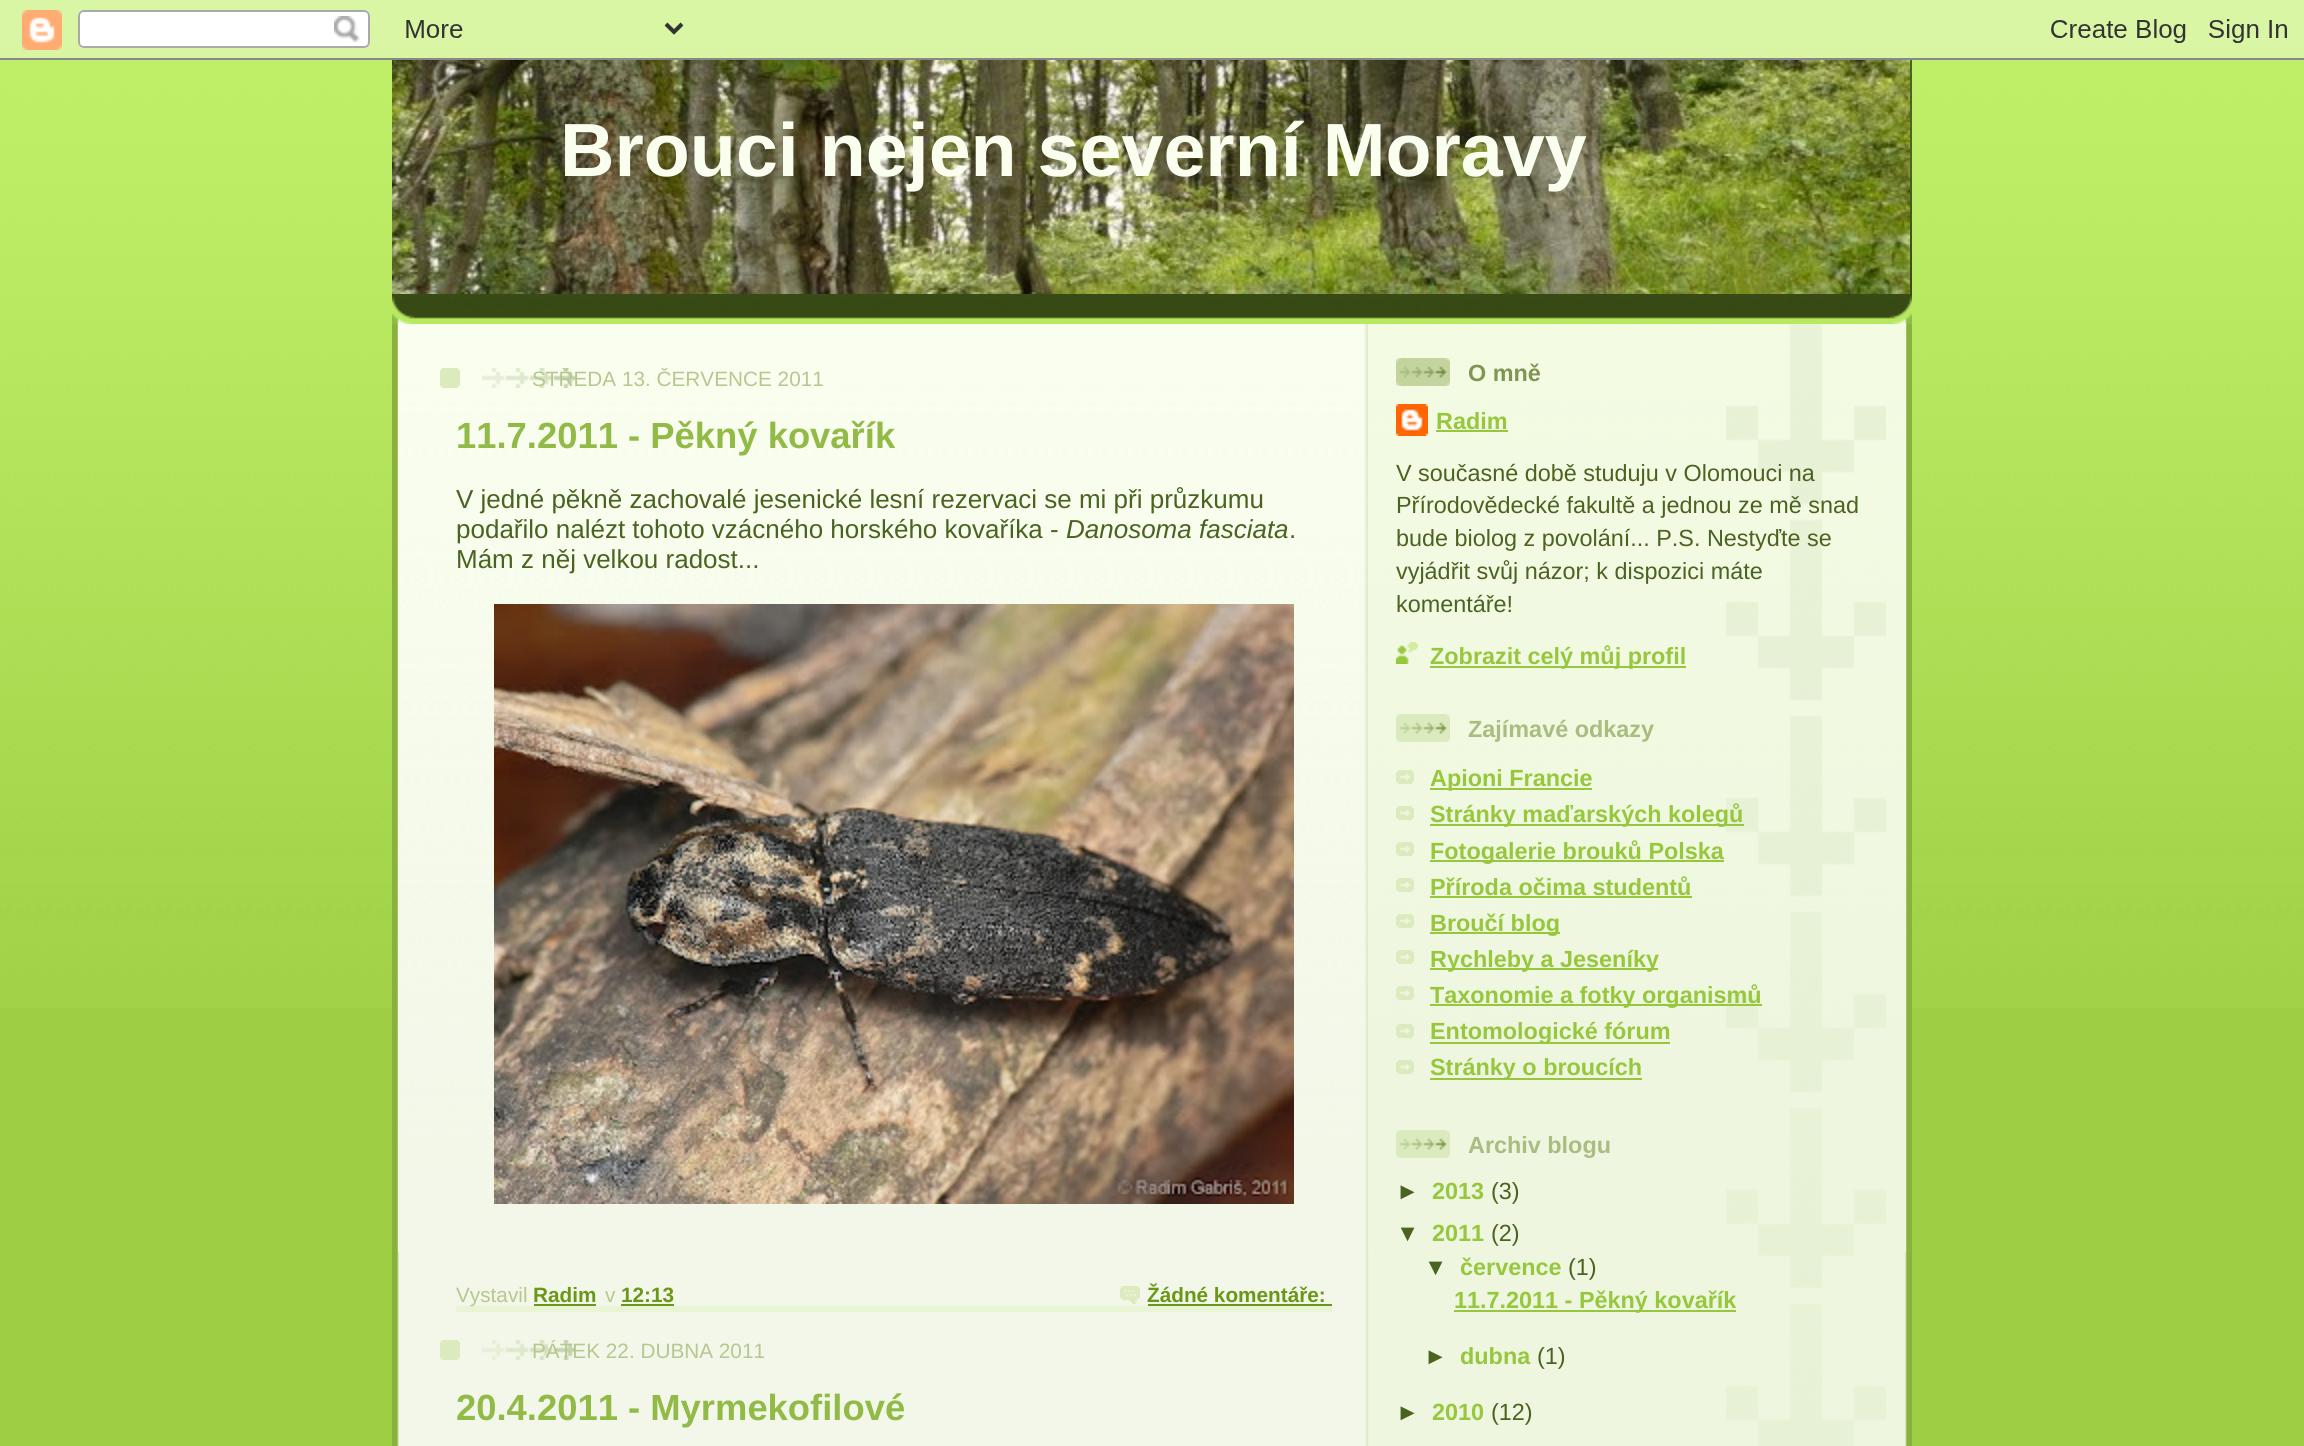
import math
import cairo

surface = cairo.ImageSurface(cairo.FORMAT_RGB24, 2304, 1446)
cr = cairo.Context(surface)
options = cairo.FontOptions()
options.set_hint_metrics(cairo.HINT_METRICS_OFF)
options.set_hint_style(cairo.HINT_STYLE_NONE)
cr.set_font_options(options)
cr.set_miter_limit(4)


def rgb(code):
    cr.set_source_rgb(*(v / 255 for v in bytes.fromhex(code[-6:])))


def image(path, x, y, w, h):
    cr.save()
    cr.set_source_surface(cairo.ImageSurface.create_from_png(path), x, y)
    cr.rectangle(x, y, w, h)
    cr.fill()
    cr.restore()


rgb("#9dce43")
cr.paint()
image("img/1.png", 0, 0, 2304, 1008)
image("img/2.png", 0, 0, 2304, 60)
image("img/3.png", 392, 294, 1520, 30)
rgb("#4b6320")
cr.rectangle(1910, 60, 2, 116)
cr.fill()
image("img/4.png", 1910, 176, 2, 118)
image("img/5.png", 392, 60, 1518, 234)
image("img/6.png", 392, 324, 1520, 1122)
image("img/7.png", 398, 324, 966, 928)
image("img/8.png", 440, 368, 20, 20)
image("img/9.png", 482, 368, 94, 20)
rgb("#e8f4d3")
cr.rectangle(456, 1306, 876, 6)
cr.fill()
image("img/10.png", 494, 604, 800, 600)
rgb("#6a9718")
cr.rectangle(534, 1304, 62, 2)
cr.fill()
cr.new_path()
cr.move_to(621, 1305)
cr.line_to(674, 1305)
cr.set_dash([2, 2])
cr.stroke()
cr.rectangle(622, 1304, 52, 2)
cr.fill()
image("img/11.png", 1120, 1286, 20, 18)
cr.rectangle(1148, 1304, 184, 2)
cr.fill()
image("img/12.png", 440, 1340, 20, 20)
image("img/13.png", 482, 1340, 94, 20)
image("img/14.png", 1368, 324, 538, 928)
image("img/15.png", 1726, 324, 160, 1122)
image("img/16.png", 1396, 358, 54, 28)
image("img/17.png", 1396, 404, 32, 32)
rgb("#96c73d")
cr.rectangle(1436, 430, 72, 2)
cr.fill()
image("img/18.png", 1396, 642, 22, 22)
cr.rectangle(1430, 666, 256, 2)
cr.fill()
image("img/19.png", 1396, 714, 54, 28)
image("img/20.png", 1396, 770, 18, 14)
cr.rectangle(1430, 788, 162, 2)
cr.fill()
image("img/21.png", 1396, 806, 18, 14)
cr.rectangle(1430, 824, 314, 2)
cr.fill()
image("img/22.png", 1396, 842, 18, 14)
cr.rectangle(1430, 860, 294, 2)
cr.fill()
image("img/23.png", 1396, 878, 18, 14)
cr.rectangle(1430, 896, 262, 2)
cr.fill()
image("img/24.png", 1396, 914, 18, 14)
cr.rectangle(1430, 932, 130, 2)
cr.fill()
image("img/25.png", 1396, 950, 18, 14)
cr.rectangle(1430, 968, 228, 2)
cr.fill()
image("img/26.png", 1396, 986, 18, 14)
cr.rectangle(1430, 1004, 332, 2)
cr.fill()
image("img/27.png", 1396, 1024, 18, 14)
cr.rectangle(1430, 1042, 240, 2)
cr.fill()
image("img/28.png", 1396, 1060, 18, 14)
cr.rectangle(1430, 1078, 212, 2)
cr.fill()
image("img/29.png", 1396, 1130, 54, 28)
cr.rectangle(1454, 1310, 282, 2)
cr.fill()
cr.select_font_face("Liberation Sans", cairo.FONT_SLANT_NORMAL, cairo.FONT_WEIGHT_BOLD)
cr.set_font_size(75.4)
rgb("#f9feee")
cr.move_to(560, 176)
cr.show_text("Brouci nejen severní Moravy")
cr.select_font_face("Liberation Sans")
cr.set_font_size(20.75)
rgb("#b5c88f")
cr.move_to(532, 386)
cr.show_text("STŘEDA 13. ČERVENCE 2011")
cr.select_font_face("Liberation Sans", cairo.FONT_SLANT_NORMAL, cairo.FONT_WEIGHT_BOLD)
cr.set_font_size(36.4)
rgb("#92ba47")
cr.move_to(456, 448)
cr.show_text("11.7.2011 - Pěkný kovařík")
cr.select_font_face("Liberation Sans")
cr.set_font_size(26)
rgb("#4b6320")
cr.move_to(456, 508)
cr.show_text("V jedné pěkně zachovalé jesenické lesní rezervaci se mi při průzkumu")
cr.move_to(456, 538)
cr.show_text("podařilo nalézt tohoto vzácného horského kovaříka -")
cr.select_font_face("Liberation Sans", cairo.FONT_SLANT_ITALIC)
cr.move_to(1066, 538)
cr.show_text("Danosoma fasciata")
cr.select_font_face("Liberation Sans")
cr.move_to(1289, 538)
cr.show_text(".")
cr.move_to(456, 568)
cr.show_text("Mám z něj velkou radost...")
cr.set_font_size(20.75)
rgb("#b5c88f")
cr.move_to(456, 1302)
cr.show_text("Vystavil")
cr.select_font_face("Liberation Sans", cairo.FONT_SLANT_NORMAL, cairo.FONT_WEIGHT_BOLD)
rgb("#6a9718")
cr.move_to(533, 1302)
cr.show_text("Radim")
cr.select_font_face("Liberation Sans")
rgb("#b5c88f")
cr.move_to(605, 1302)
cr.show_text("v")
cr.select_font_face("Liberation Sans", cairo.FONT_SLANT_NORMAL, cairo.FONT_WEIGHT_BOLD)
rgb("#6a9718")
cr.move_to(621, 1302)
cr.show_text("12:13")
cr.move_to(1147, 1302)
cr.show_text("Žádné komentáře:")
cr.select_font_face("Liberation Sans")
rgb("#b5c88f")
cr.move_to(532, 1358)
cr.show_text("PÁTEK 22. DUBNA 2011")
cr.select_font_face("Liberation Sans", cairo.FONT_SLANT_NORMAL, cairo.FONT_WEIGHT_BOLD)
cr.set_font_size(36.4)
rgb("#92ba47")
cr.move_to(456, 1420)
cr.show_text("20.4.2011 - Myrmekofilové")
cr.set_font_size(23.4)
rgb("#809552")
cr.move_to(1468, 381)
cr.show_text("O mně")
rgb("#96c73d")
cr.move_to(1436, 429)
cr.show_text("Radim")
cr.select_font_face("Liberation Sans")
rgb("#4b6320")
for x, y, s in [
    (1396, 481, "V současné době studuju v Olomouci na"),
    (1396, 513, "Přírodovědecké fakultě a jednou ze mě snad"),
    (1396, 546, "bude biolog z povolání... P.S. Nestyďte se"),
    (1396, 579, "vyjádřit svůj názor; k dispozici máte"),
    (1396, 612, "komentáře!"),
]:
    cr.move_to(x, y)
    cr.show_text(s)
cr.select_font_face("Liberation Sans", cairo.FONT_SLANT_NORMAL, cairo.FONT_WEIGHT_BOLD)
rgb("#96c73d")
cr.move_to(1430, 664)
cr.show_text("Zobrazit celý můj profil")
rgb("#a9bd80")
cr.move_to(1468, 737)
cr.show_text("Zajímavé odkazy")
rgb("#96c73d")
for x, y, s in [
    (1430, 786, "Apioni Francie"),
    (1430, 822, "Stránky maďarských kolegů"),
    (1430, 859, "Fotogalerie brouků Polska"),
    (1430, 895, "Příroda očima studentů"),
    (1430, 931, "Broučí blog"),
    (1430, 967, "Rychleby a Jeseníky"),
    (1430, 1003, "Taxonomie a fotky organismů"),
    (1430, 1039, "Entomologické fórum"),
    (1430, 1075, "Stránky o broucích"),
]:
    cr.move_to(x, y)
    cr.show_text(s)
rgb("#a9bd80")
cr.move_to(1468, 1153)
cr.show_text("Archiv blogu")
rgb("#4b6320")
cr.move_to(1396, 1199)
cr.show_text("►")
rgb("#96c73d")
cr.move_to(1432, 1199)
cr.show_text("2013")
cr.select_font_face("Liberation Sans")
rgb("#4b6320")
cr.move_to(1491, 1199)
cr.show_text("(3)")
cr.select_font_face("Liberation Sans", cairo.FONT_SLANT_NORMAL, cairo.FONT_WEIGHT_BOLD)
cr.move_to(1396, 1241)
cr.show_text("▼")
rgb("#96c73d")
cr.move_to(1432, 1241)
cr.show_text("2011")
cr.select_font_face("Liberation Sans")
rgb("#4b6320")
cr.move_to(1491, 1241)
cr.show_text("(2)")
cr.select_font_face("Liberation Sans", cairo.FONT_SLANT_NORMAL, cairo.FONT_WEIGHT_BOLD)
cr.move_to(1424, 1275)
cr.show_text("▼")
rgb("#96c73d")
cr.move_to(1460, 1275)
cr.show_text("července")
cr.select_font_face("Liberation Sans")
rgb("#4b6320")
cr.move_to(1568, 1275)
cr.show_text("(1)")
cr.select_font_face("Liberation Sans", cairo.FONT_SLANT_NORMAL, cairo.FONT_WEIGHT_BOLD)
rgb("#96c73d")
cr.move_to(1454, 1308)
cr.show_text("11.7.2011 - Pěkný kovařík")
rgb("#4b6320")
cr.move_to(1424, 1364)
cr.show_text("►")
rgb("#96c73d")
cr.move_to(1460, 1364)
cr.show_text("dubna")
cr.select_font_face("Liberation Sans")
rgb("#4b6320")
cr.move_to(1537, 1364)
cr.show_text("(1)")
cr.select_font_face("Liberation Sans", cairo.FONT_SLANT_NORMAL, cairo.FONT_WEIGHT_BOLD)
cr.move_to(1396, 1420)
cr.show_text("►")
rgb("#96c73d")
cr.move_to(1432, 1420)
cr.show_text("2010")
cr.select_font_face("Liberation Sans")
rgb("#4b6320")
cr.move_to(1491, 1420)
cr.show_text("(12)")
surface.write_to_png("page.png")
